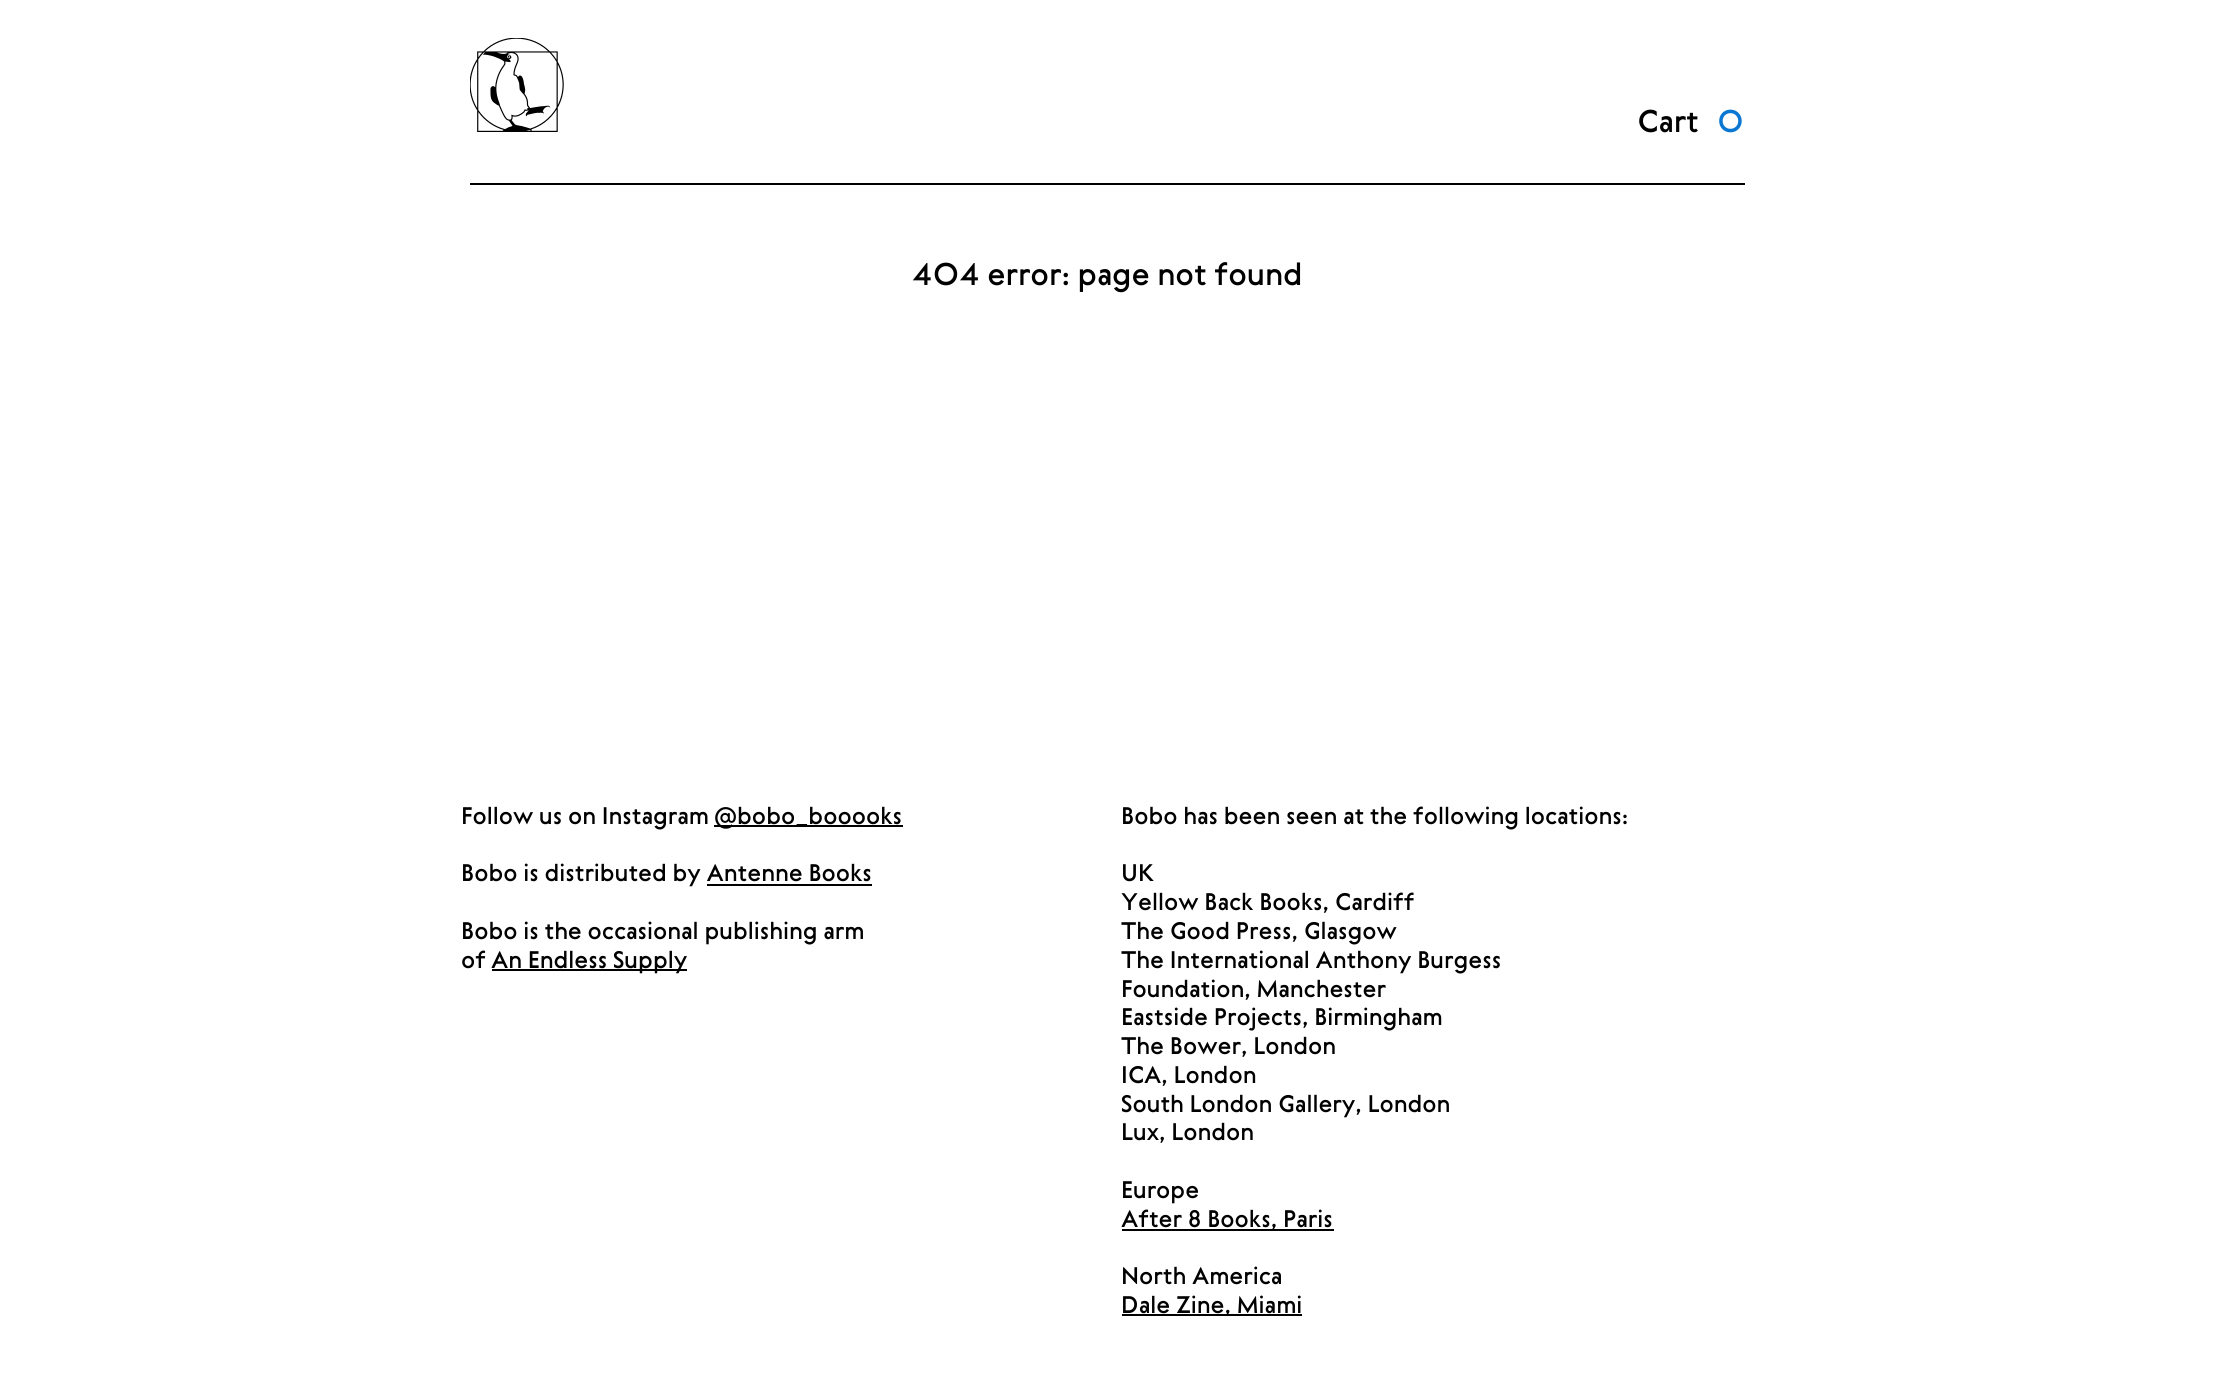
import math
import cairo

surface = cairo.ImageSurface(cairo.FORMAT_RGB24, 2213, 1380)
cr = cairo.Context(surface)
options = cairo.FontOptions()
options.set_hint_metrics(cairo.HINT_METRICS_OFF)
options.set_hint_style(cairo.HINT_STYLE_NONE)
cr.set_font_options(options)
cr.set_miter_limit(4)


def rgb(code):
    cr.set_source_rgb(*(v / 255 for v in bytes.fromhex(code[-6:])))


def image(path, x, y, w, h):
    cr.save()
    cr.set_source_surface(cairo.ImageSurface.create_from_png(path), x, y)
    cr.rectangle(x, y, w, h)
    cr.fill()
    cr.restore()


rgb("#ffffff")
cr.paint()
rgb("#000000")
cr.rectangle(470, 183, 1275, 2)
cr.fill()
image("img/1.png", 470, 38, 94, 94)
for x, y, w, h, color in [
    (714, 825, 189, 2, "#000000"),
    (707, 884, 165, 2, "#000000"),
    (492, 969, 195, 2, "#000000"),
    (1122, 1229, 212, 2, "#000000"),
    (1122, 1314, 180, 2, "#000000"),
]:
    rgb(color)
    cr.rectangle(x, y, w, h)
    cr.fill()
cr.select_font_face("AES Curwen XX")
cr.set_font_size(31.5)
cr.move_to(1637, 132)
cr.show_text("Cart")
rgb("#0a78d2")
cr.move_to(1717, 132)
cr.show_text("0")
rgb("#000000")
cr.move_to(912, 285)
cr.show_text("404 error: page not found")
cr.set_font_size(24)
for x, y, s in [
    (461, 824, "Follow us on Instagram"),
    (714, 824, "@bobo_booooks"),
    (461, 881, "Bobo is distributed by Antenne Books"),
    (461, 939, "Bobo is the occasional publishing arm"),
    (461, 968, "of"),
    (491, 968, "An Endless Supply"),
    (1121, 824, "Bobo has been seen at the following locations:"),
    (1121, 881, "UK"),
    (1121, 910, "Yellow Back Books, Cardiff"),
    (1121, 939, "The Good Press, Glasgow"),
    (1121, 968, "The International Anthony Burgess"),
    (1121, 997, "Foundation, Manchester"),
    (1121, 1025, "Eastside Projects, Birmingham"),
    (1121, 1054, "The Bower, London"),
    (1121, 1083, "ICA, London"),
    (1121, 1112, "South London Gallery, London"),
    (1121, 1140, "Lux, London"),
    (1121, 1198, "Europe"),
    (1121, 1227, "After 8 Books, Paris"),
    (1121, 1284, "North America"),
    (1121, 1313, "Dale Zine, Miami"),
]:
    cr.move_to(x, y)
    cr.show_text(s)
surface.write_to_png("page.png")
